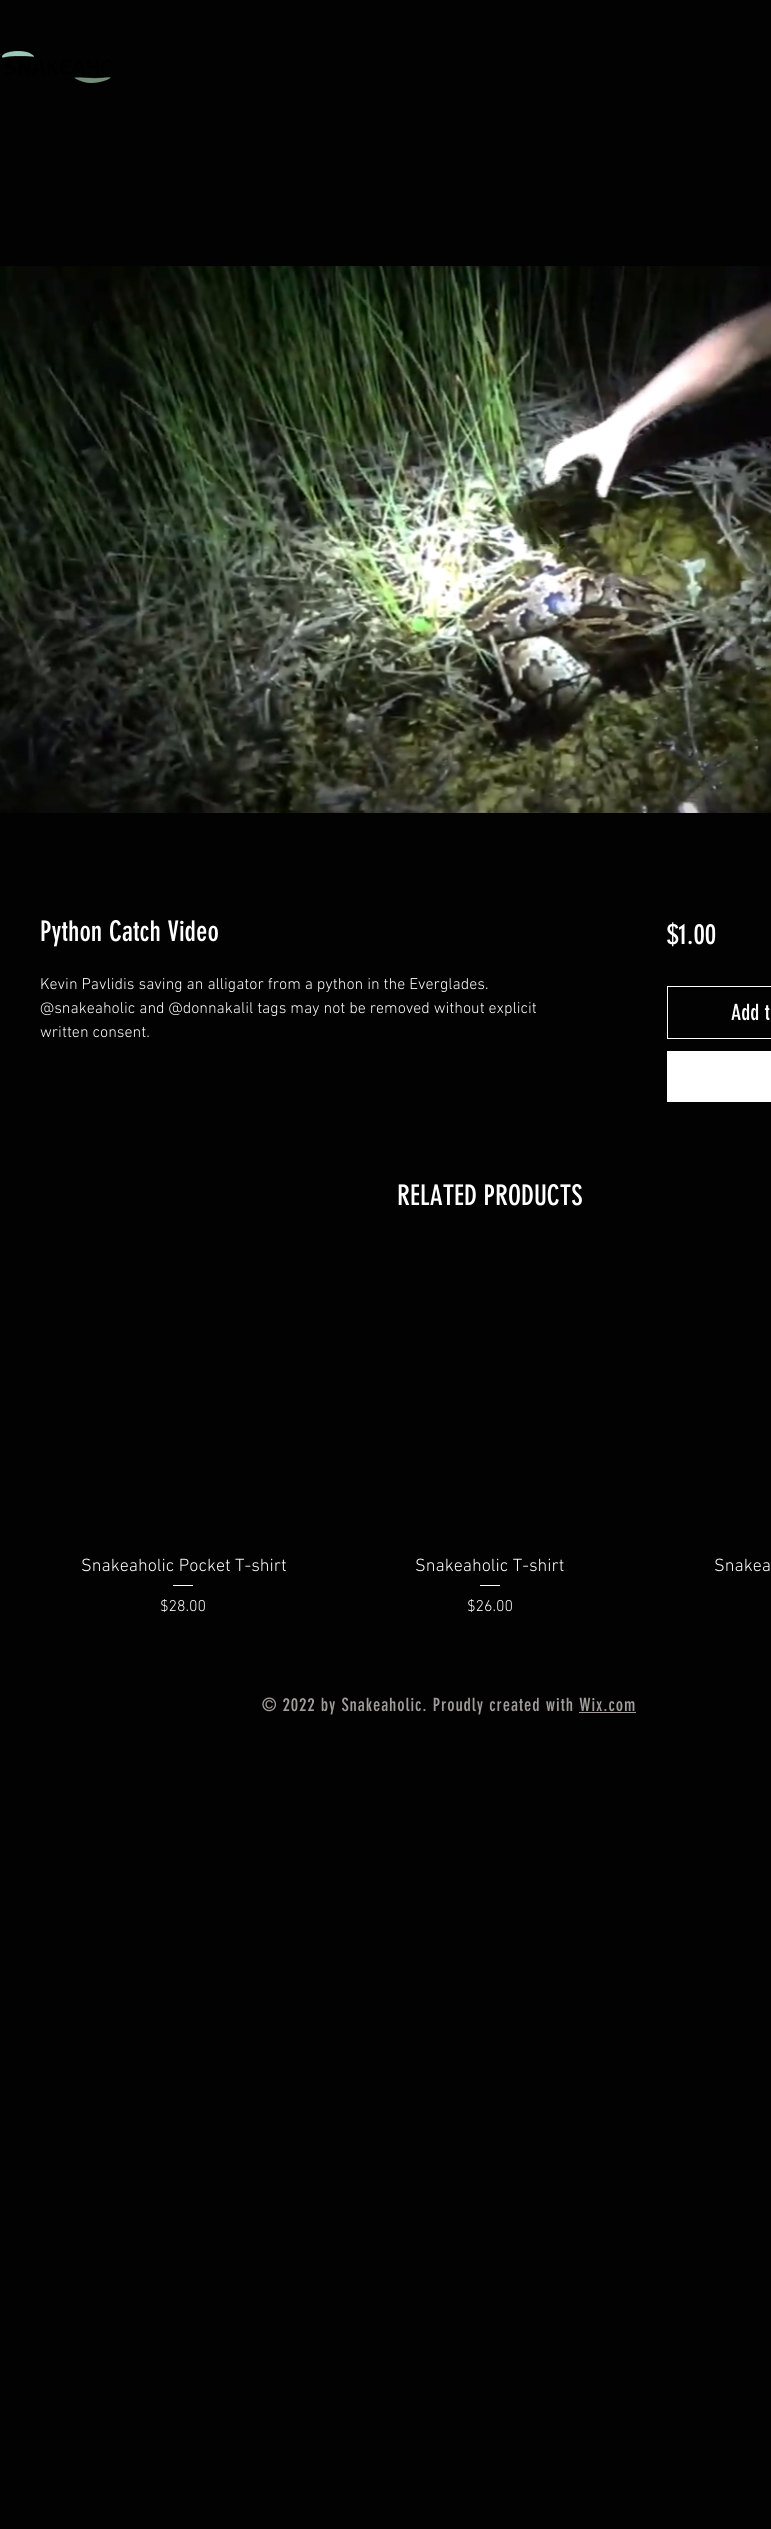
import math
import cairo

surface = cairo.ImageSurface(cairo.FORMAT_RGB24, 771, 2529)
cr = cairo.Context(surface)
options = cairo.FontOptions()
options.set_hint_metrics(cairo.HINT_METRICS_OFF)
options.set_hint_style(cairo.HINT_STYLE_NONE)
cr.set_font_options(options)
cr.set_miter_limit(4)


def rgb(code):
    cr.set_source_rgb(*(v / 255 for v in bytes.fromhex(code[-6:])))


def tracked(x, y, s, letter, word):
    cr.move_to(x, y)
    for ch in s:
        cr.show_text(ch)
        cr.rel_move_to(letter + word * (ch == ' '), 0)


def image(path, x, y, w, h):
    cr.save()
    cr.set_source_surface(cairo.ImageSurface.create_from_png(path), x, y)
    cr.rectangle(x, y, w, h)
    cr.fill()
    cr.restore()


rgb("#020202")
cr.paint()
image("img/1.png", 2, 51, 109, 32)
image("img/2.png", 0, 266, 771, 547)
cr.rectangle(667.5, 986.5, 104, 52)
rgb("#ffffff")
cr.set_line_width(1)
cr.stroke()
for x, y, w, h, color in [
    (667, 1051, 104, 51, "#ffffff"),
    (173, 1585, 20, 1, "#ffffff"),
    (480, 1585, 20, 1, "#ffffff"),
    (579, 1712, 57, 1, "#a29c9c"),
]:
    rgb(color)
    cr.rectangle(x, y, w, h)
    cr.fill()
cr.select_font_face("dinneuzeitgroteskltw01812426")
cr.set_font_size(28)
rgb("#ffffff")
cr.move_to(40, 941)
cr.show_text("Python Catch Video")
cr.select_font_face("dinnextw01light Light")
cr.set_font_size(16)
for x, y, s in [
    (40, 989, "Kevin Pavlidis saving an alligator from a python in the Everglades."),
    (40, 1013, "@snakeaholic and @donnakalil tags may not be removed without explicit"),
    (40, 1037, "written consent."),
]:
    cr.move_to(x, y)
    cr.show_text(s)
cr.select_font_face("dinneuzeitgroteskltw01812426")
cr.set_font_size(28)
cr.move_to(667, 944)
cr.show_text("$1.00")
cr.set_font_size(22)
cr.move_to(731, 1020)
cr.show_text("Add t")
cr.set_font_size(28)
cr.move_to(397, 1205)
cr.show_text("RELATED PRODUCTS")
cr.select_font_face("dinnextw01light Light")
cr.set_font_size(18)
cr.move_to(81, 1571)
cr.show_text("Snakeaholic Pocket T-shirt")
cr.set_font_size(16)
cr.move_to(160, 1611)
cr.show_text("$28.00")
cr.set_font_size(18)
cr.move_to(415, 1571)
cr.show_text("Snakeaholic T-shirt")
cr.set_font_size(16)
cr.move_to(467, 1611)
cr.show_text("$26.00")
cr.set_font_size(18)
cr.move_to(714, 1571)
cr.show_text("Snakea")
cr.select_font_face("dinneuzeitgroteskltw01812426")
rgb("#a29c9c")
tracked(262, 1711, "© 2022 by Snakeaholic. Proudly created with Wix.com", 0.9, 0)
surface.write_to_png("page.png")
